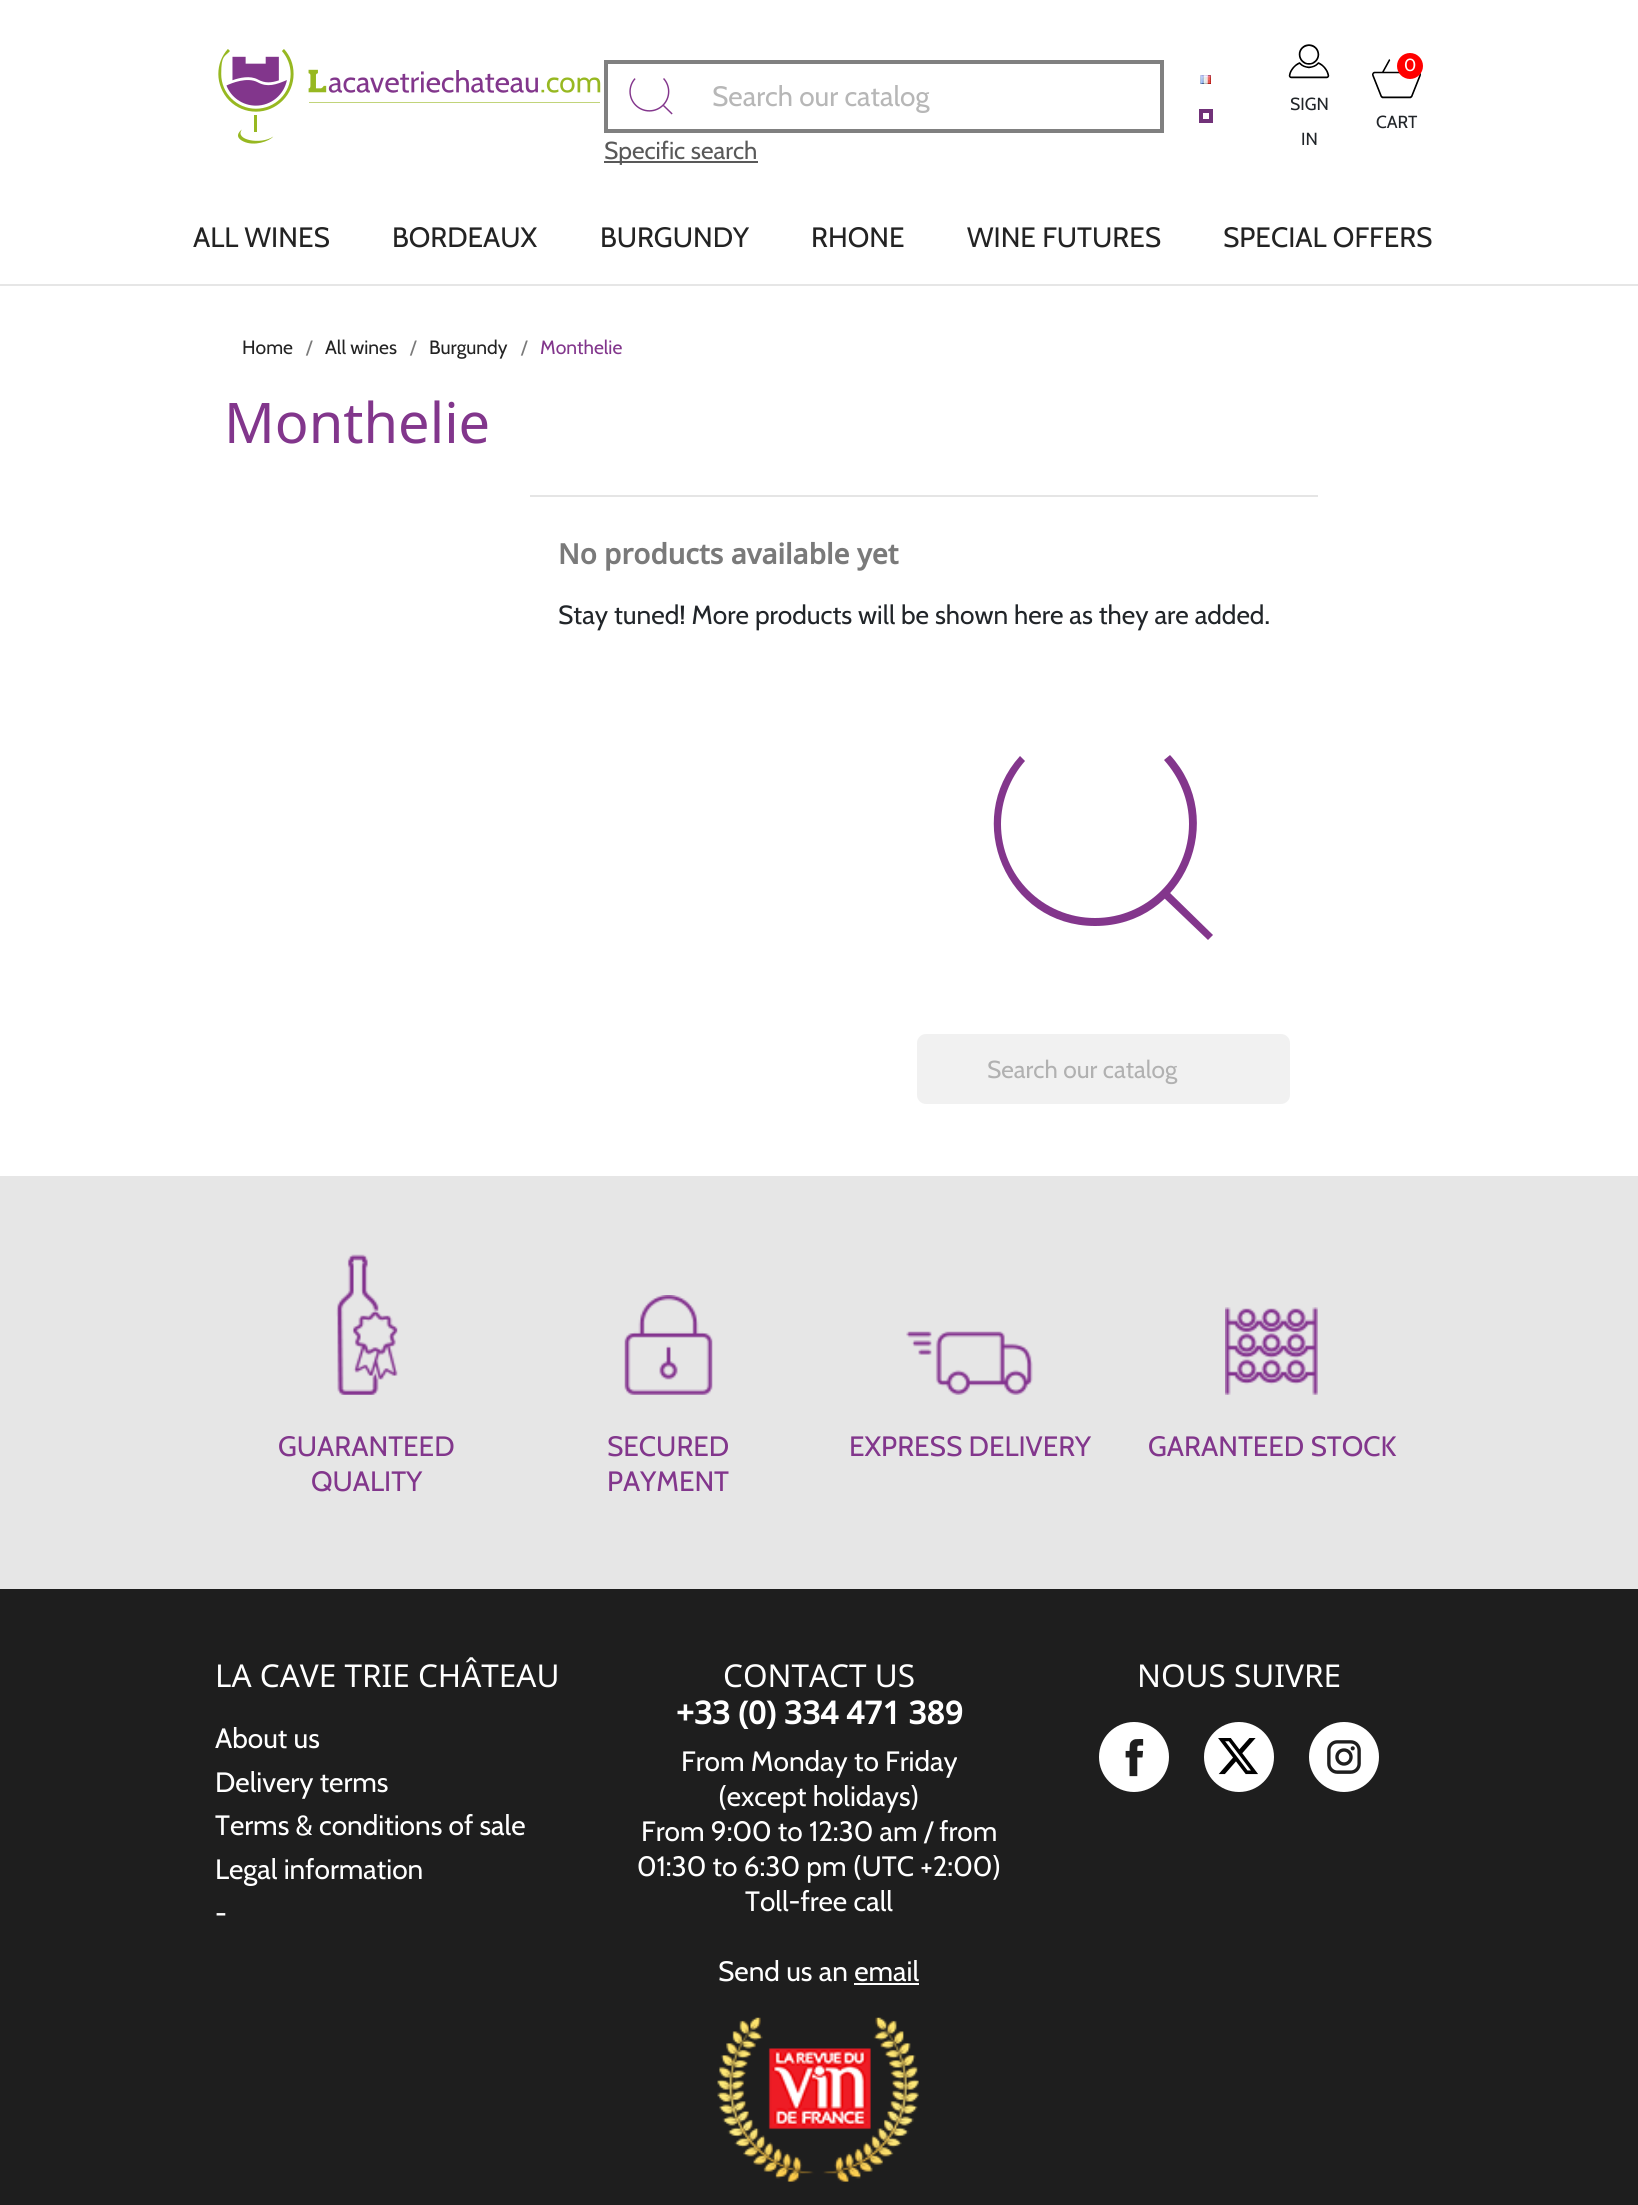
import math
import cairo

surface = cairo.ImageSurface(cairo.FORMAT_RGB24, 1638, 2205)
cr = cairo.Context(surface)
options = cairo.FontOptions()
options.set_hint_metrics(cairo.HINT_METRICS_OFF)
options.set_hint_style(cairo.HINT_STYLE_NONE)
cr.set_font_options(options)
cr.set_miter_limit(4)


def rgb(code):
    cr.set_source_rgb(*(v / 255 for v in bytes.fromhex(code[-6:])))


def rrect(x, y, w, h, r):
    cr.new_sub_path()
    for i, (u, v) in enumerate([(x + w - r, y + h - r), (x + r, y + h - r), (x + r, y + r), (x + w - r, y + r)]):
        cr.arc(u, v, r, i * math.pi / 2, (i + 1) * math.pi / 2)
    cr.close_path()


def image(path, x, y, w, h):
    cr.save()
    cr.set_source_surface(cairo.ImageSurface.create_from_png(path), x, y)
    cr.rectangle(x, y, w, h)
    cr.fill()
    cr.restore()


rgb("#ffffff")
cr.paint()
rgb("#e6e6e6")
cr.rectangle(0, 284, 1638, 2)
cr.fill()
image("img/1.png", 218, 49, 383, 95)
cr.rectangle(606, 62, 556, 69)
rgb("#808080")
cr.set_line_width(4)
cr.stroke()
image("img/2.png", 629, 78, 44, 37)
rgb("#595959")
cr.rectangle(604, 161, 154, 2)
cr.fill()
image("img/3.png", 1200, 75, 11, 9)
cr.rectangle(1201, 111, 10, 10)
rgb("#713279")
cr.stroke()
image("img/4.png", 1288, 44, 42, 35)
image("img/5.png", 1372, 59, 49, 40)
rgb("#ff0000")
cr.arc(1410, 66, 13, 0, 2 * math.pi)
cr.fill()
rgb("#e5e5e5")
cr.rectangle(530, 495, 788, 2)
cr.fill()
rgb("#83368c")
cr.new_path()
cr.move_to(1095, 926)
cr.curve_to(1006, 926, 962, 820, 1020, 756)
cr.line_to(1025, 761)
cr.curve_to(1010, 778, 1001, 801, 1001, 824)
cr.curve_to(1001, 876, 1043, 918, 1095, 918)
cr.curve_to(1147, 918, 1189, 876, 1189, 824)
cr.curve_to(1189, 800, 1180, 778, 1164, 760)
cr.line_to(1170, 755)
cr.curve_to(1229, 819, 1185, 926, 1095, 926)
cr.close_path()
cr.fill()
cr.new_path()
cr.move_to(1163, 897)
cr.line_to(1168, 891)
cr.line_to(1213, 935)
cr.line_to(1208, 940)
cr.close_path()
cr.fill()
rgb("#f1f1f1")
rrect(917, 1034, 373, 70, 9)
cr.fill()
rgb("#e6e6e6")
cr.rectangle(0, 1176, 1638, 413)
cr.fill()
image("img/6.png", 336, 1254, 62, 141)
image("img/7.png", 624, 1295, 89, 100)
image("img/8.png", 906, 1331, 127, 64)
image("img/9.png", 1225, 1307, 93, 88)
rgb("#1e1e1e")
cr.rectangle(0, 1589, 1638, 616)
cr.fill()
rgb("#ffffff")
cr.rectangle(854, 1983, 65, 2)
cr.fill()
image("img/10.png", 717, 2017, 202, 165)
cr.arc(1134, 1757, 35, 0, 2 * math.pi)
cr.fill()
image("img/11.png", 1125, 1739, 19, 38)
cr.arc(1239, 1757, 35, 0, 2 * math.pi)
cr.fill()
image("img/12.png", 1218, 1738, 40, 37)
cr.arc(1344, 1757, 35, 0, 2 * math.pi)
cr.fill()
image("img/13.png", 1327, 1740, 34, 34)
cr.select_font_face("Cabin")
cr.set_font_size(28)
rgb("#b7b7b7")
cr.move_to(712, 106)
cr.show_text("Search our catalog")
cr.set_font_size(24.5)
rgb("#595959")
cr.move_to(604, 159)
cr.show_text("Specific search")
cr.set_font_size(17.5)
rgb("#212529")
cr.move_to(1290, 110)
cr.show_text("SIGN")
cr.move_to(1301, 145)
cr.show_text("IN")
rgb("#ffffff")
cr.move_to(1404, 71)
cr.show_text("0")
rgb("#212529")
cr.move_to(1376, 128)
cr.show_text("CART")
cr.set_font_size(28)
rgb("#232323")
for x, y, s in [
    (193, 247, "ALL WINES"),
    (392, 247, "BORDEAUX"),
    (600, 247, "BURGUNDY"),
    (811, 247, "RHONE"),
    (967, 247, "WINE FUTURES"),
    (1223, 247, "SPECIAL OFFERS"),
]:
    cr.move_to(x, y)
    cr.show_text(s)
cr.set_font_size(19.25)
cr.move_to(242, 354)
cr.show_text("Home")
rgb("#7a7a7a")
cr.move_to(306, 354)
cr.show_text("/")
rgb("#232323")
cr.move_to(325, 354)
cr.show_text("All wines")
rgb("#7a7a7a")
cr.move_to(410, 354)
cr.show_text("/")
rgb("#232323")
cr.move_to(429, 354)
cr.show_text("Burgundy")
rgb("#7a7a7a")
cr.move_to(521, 354)
cr.show_text("/")
rgb("#82368c")
cr.move_to(540, 354)
cr.show_text("Monthelie")
cr.select_font_face("Noto Sans")
cr.set_font_size(56)
cr.move_to(224, 443)
cr.show_text("Monthelie")
cr.select_font_face("Noto Sans", cairo.FONT_SLANT_NORMAL, cairo.FONT_WEIGHT_BOLD)
cr.set_font_size(28)
rgb("#7a7a7a")
cr.move_to(558, 564)
cr.show_text("No products available yet")
cr.select_font_face("Cabin")
cr.set_font_size(26.25)
rgb("#212529")
cr.move_to(558, 624)
cr.show_text("Stay tuned! More products will be shown here as they are added.")
cr.set_font_size(24.5)
rgb("#b1b1b1")
cr.move_to(987, 1078)
cr.show_text("Search our catalog")
cr.set_font_size(28)
rgb("#82368c")
for x, y, s in [
    (278, 1456, "GUARANTEED"),
    (311, 1491, "QUALITY"),
    (607, 1456, "SECURED"),
    (607, 1491, "PAYMENT"),
    (849, 1456, "EXPRESS DELIVERY"),
    (1148, 1456, "GARANTEED STOCK"),
]:
    cr.move_to(x, y)
    cr.show_text(s)
cr.select_font_face("Noto Sans")
cr.set_font_size(31.5)
rgb("#ffffff")
cr.move_to(215, 1687)
cr.show_text("LA CAVE TRIE CHÂTEAU")
cr.select_font_face("Cabin")
cr.set_font_size(28)
for x, y, s in [
    (215, 1748, "About us"),
    (215, 1792, "Delivery terms"),
    (215, 1835, "Terms & conditions of sale"),
    (215, 1879, "Legal information"),
    (215, 1923, "-"),
]:
    cr.move_to(x, y)
    cr.show_text(s)
cr.select_font_face("Noto Sans")
cr.set_font_size(31.5)
cr.move_to(723, 1687)
cr.show_text("CONTACT US")
cr.select_font_face("Noto Sans", cairo.FONT_SLANT_NORMAL, cairo.FONT_WEIGHT_BOLD)
cr.move_to(676, 1724)
cr.show_text("+33 (0) 334 471 389")
cr.select_font_face("Cabin")
cr.set_font_size(28)
for x, y, s in [
    (681, 1771, "From Monday to Friday"),
    (718, 1806, "(except holidays)"),
    (641, 1841, "From 9:00 to 12:30 am / from"),
    (637, 1876, "01:30 to 6:30 pm (UTC +2:00)"),
    (745, 1911, "Toll-free call"),
    (718, 1981, "Send us an email"),
]:
    cr.move_to(x, y)
    cr.show_text(s)
cr.select_font_face("Noto Sans")
cr.set_font_size(31.5)
cr.move_to(1137, 1687)
cr.show_text("NOUS SUIVRE")
surface.write_to_png("page.png")
